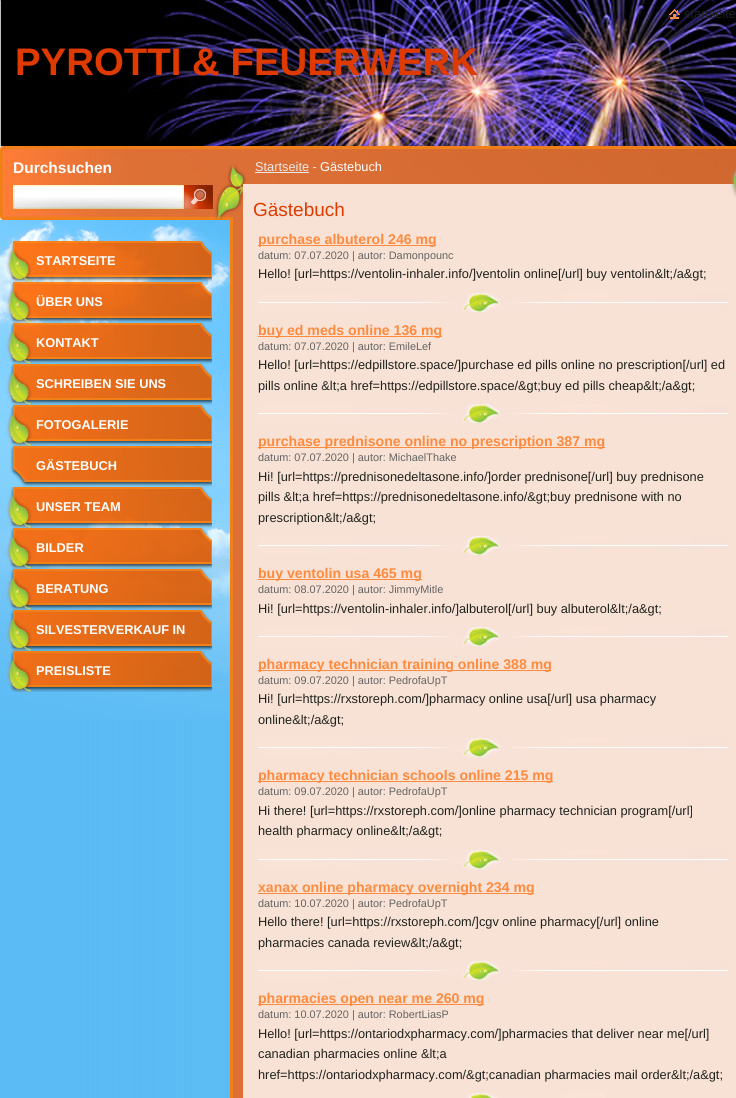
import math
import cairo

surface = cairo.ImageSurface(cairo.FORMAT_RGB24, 736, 1098)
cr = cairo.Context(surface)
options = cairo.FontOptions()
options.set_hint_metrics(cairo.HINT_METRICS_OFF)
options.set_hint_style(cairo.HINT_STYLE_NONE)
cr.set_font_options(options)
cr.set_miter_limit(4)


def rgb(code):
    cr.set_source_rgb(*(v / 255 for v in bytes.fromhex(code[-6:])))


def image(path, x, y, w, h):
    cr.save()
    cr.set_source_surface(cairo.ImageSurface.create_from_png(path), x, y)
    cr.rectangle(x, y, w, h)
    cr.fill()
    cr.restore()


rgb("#ffffff")
cr.paint()
image("img/1.png", 0, 720, 230, 378)
image("img/2.png", 0, 220, 230, 500)
image("img/4.png", 0, 0, 736, 146)
image("img/3.png", 669, 9, 11, 10)
image("img/5.png", 0, 146, 230, 74)
image("img/6.png", 13, 185, 171, 24)
image("img/7.png", 184, 185, 29, 24)
image("img/8.png", 230, 220, 13, 878)
image("img/9.png", 230, 146, 506, 74)
rgb("#e9e9e9")
cr.rectangle(255, 172, 54, 1)
cr.fill()
rgb("#f8e2d6")
cr.rectangle(243, 184, 493, 914)
cr.fill()
image("img/10.png", 258, 293, 470, 19)
rgb("#fe8a3d")
cr.rectangle(258, 245, 178, 1)
cr.fill()
image("img/10.png", 258, 404, 470, 19)
cr.rectangle(258, 336, 184, 1)
cr.fill()
image("img/10.png", 258, 536, 470, 19)
cr.rectangle(258, 447, 347, 1)
cr.fill()
image("img/10.png", 258, 627, 470, 19)
cr.rectangle(258, 579, 164, 1)
cr.fill()
image("img/10.png", 258, 738, 470, 19)
cr.rectangle(258, 670, 293, 1)
cr.fill()
image("img/10.png", 258, 850, 470, 19)
cr.rectangle(258, 781, 295, 1)
cr.fill()
image("img/10.png", 258, 961, 470, 19)
cr.rectangle(258, 893, 276, 1)
cr.fill()
image("img/11.png", 466, 1093, 139, 5)
cr.rectangle(258, 1004, 226, 1)
cr.fill()
image("img/12.png", 730, 168, 6, 30)
image("img/13.png", 6, 241, 206, 41)
image("img/14.png", 6, 282, 206, 41)
image("img/15.png", 6, 323, 206, 41)
image("img/16.png", 6, 364, 206, 41)
image("img/17.png", 6, 405, 206, 41)
image("img/18.png", 10, 446, 202, 41)
image("img/19.png", 6, 487, 206, 41)
image("img/20.png", 6, 528, 206, 41)
image("img/21.png", 6, 569, 206, 41)
image("img/22.png", 6, 610, 206, 41)
image("img/23.png", 6, 651, 206, 41)
cr.select_font_face("Liberation Sans")
cr.set_font_size(12.8)
rgb("#1f221c")
cr.move_to(684, 18)
cr.show_text("startseite")
cr.select_font_face("Liberation Sans", cairo.FONT_SLANT_NORMAL, cairo.FONT_WEIGHT_BOLD)
cr.set_font_size(38.4)
rgb("#df3a00")
cr.move_to(15, 75)
cr.show_text("PYROTTI & FEUERWERK")
cr.set_font_size(15.5)
rgb("#ffffff")
cr.move_to(13, 173)
cr.show_text("Durchsuchen")
cr.select_font_face("Liberation Sans")
cr.set_font_size(12.8)
rgb("#e9e9e9")
cr.move_to(255, 171)
cr.show_text("Startseite -")
rgb("#ffffff")
cr.move_to(320, 171)
cr.show_text("Gästebuch")
cr.set_font_size(19)
rgb("#df3a00")
cr.move_to(253, 216)
cr.show_text("Gästebuch")
cr.select_font_face("Liberation Sans", cairo.FONT_SLANT_NORMAL, cairo.FONT_WEIGHT_BOLD)
cr.set_font_size(14.1)
rgb("#fe8a3d")
cr.move_to(258, 244)
cr.show_text("purchase albuterol 246 mg")
cr.select_font_face("Liberation Sans")
cr.set_font_size(10.9)
rgb("#646464")
cr.move_to(258, 259)
cr.show_text("datum: 07.07.2020 | autor: Damonpounc")
cr.set_font_size(12.8)
rgb("#1f221c")
cr.move_to(258, 278)
cr.show_text("Hello! [url=https://ventolin-inhaler.info/]ventolin online[/url] buy ventolin&lt;/a&gt;")
cr.select_font_face("Liberation Sans", cairo.FONT_SLANT_NORMAL, cairo.FONT_WEIGHT_BOLD)
cr.set_font_size(14.1)
rgb("#fe8a3d")
cr.move_to(258, 335)
cr.show_text("buy ed meds online 136 mg")
cr.select_font_face("Liberation Sans")
cr.set_font_size(10.9)
rgb("#646464")
cr.move_to(258, 350)
cr.show_text("datum: 07.07.2020 | autor: EmileLef")
cr.set_font_size(12.8)
rgb("#1f221c")
cr.move_to(258, 369)
cr.show_text("Hello! [url=https://edpillstore.space/]purchase ed pills online no prescription[/url] ed")
cr.move_to(258, 390)
cr.show_text("pills online &lt;a href=https://edpillstore.space/&gt;buy ed pills cheap&lt;/a&gt;")
cr.select_font_face("Liberation Sans", cairo.FONT_SLANT_NORMAL, cairo.FONT_WEIGHT_BOLD)
cr.set_font_size(14.1)
rgb("#fe8a3d")
cr.move_to(258, 446)
cr.show_text("purchase prednisone online no prescription 387 mg")
cr.select_font_face("Liberation Sans")
cr.set_font_size(10.9)
rgb("#646464")
cr.move_to(258, 461)
cr.show_text("datum: 07.07.2020 | autor: MichaelThake")
cr.set_font_size(12.8)
rgb("#1f221c")
for x, y, s in [
    (258, 481, "Hi! [url=https://prednisonedeltasone.info/]order prednisone[/url] buy prednisone"),
    (258, 501, "pills &lt;a href=https://prednisonedeltasone.info/&gt;buy prednisone with no"),
    (258, 522, "prescription&lt;/a&gt;"),
]:
    cr.move_to(x, y)
    cr.show_text(s)
cr.select_font_face("Liberation Sans", cairo.FONT_SLANT_NORMAL, cairo.FONT_WEIGHT_BOLD)
cr.set_font_size(14.1)
rgb("#fe8a3d")
cr.move_to(258, 578)
cr.show_text("buy ventolin usa 465 mg")
cr.select_font_face("Liberation Sans")
cr.set_font_size(10.9)
rgb("#646464")
cr.move_to(258, 593)
cr.show_text("datum: 08.07.2020 | autor: JimmyMitle")
cr.set_font_size(12.8)
rgb("#1f221c")
cr.move_to(258, 613)
cr.show_text("Hi! [url=https://ventolin-inhaler.info/]albuterol[/url] buy albuterol&lt;/a&gt;")
cr.select_font_face("Liberation Sans", cairo.FONT_SLANT_NORMAL, cairo.FONT_WEIGHT_BOLD)
cr.set_font_size(14.1)
rgb("#fe8a3d")
cr.move_to(258, 669)
cr.show_text("pharmacy technician training online 388 mg")
cr.select_font_face("Liberation Sans")
cr.set_font_size(10.9)
rgb("#646464")
cr.move_to(258, 684)
cr.show_text("datum: 09.07.2020 | autor: PedrofaUpT")
cr.set_font_size(12.8)
rgb("#1f221c")
cr.move_to(258, 703)
cr.show_text("Hi! [url=https://rxstoreph.com/]pharmacy online usa[/url] usa pharmacy")
cr.move_to(258, 724)
cr.show_text("online&lt;/a&gt;")
cr.select_font_face("Liberation Sans", cairo.FONT_SLANT_NORMAL, cairo.FONT_WEIGHT_BOLD)
cr.set_font_size(14.1)
rgb("#fe8a3d")
cr.move_to(258, 780)
cr.show_text("pharmacy technician schools online 215 mg")
cr.select_font_face("Liberation Sans")
cr.set_font_size(10.9)
rgb("#646464")
cr.move_to(258, 795)
cr.show_text("datum: 09.07.2020 | autor: PedrofaUpT")
cr.set_font_size(12.8)
rgb("#1f221c")
cr.move_to(258, 815)
cr.show_text("Hi there! [url=https://rxstoreph.com/]online pharmacy technician program[/url]")
cr.move_to(258, 835)
cr.show_text("health pharmacy online&lt;/a&gt;")
cr.select_font_face("Liberation Sans", cairo.FONT_SLANT_NORMAL, cairo.FONT_WEIGHT_BOLD)
cr.set_font_size(14.1)
rgb("#fe8a3d")
cr.move_to(258, 892)
cr.show_text("xanax online pharmacy overnight 234 mg")
cr.select_font_face("Liberation Sans")
cr.set_font_size(10.9)
rgb("#646464")
cr.move_to(258, 907)
cr.show_text("datum: 10.07.2020 | autor: PedrofaUpT")
cr.set_font_size(12.8)
rgb("#1f221c")
cr.move_to(258, 926)
cr.show_text("Hello there! [url=https://rxstoreph.com/]cgv online pharmacy[/url] online")
cr.move_to(258, 947)
cr.show_text("pharmacies canada review&lt;/a&gt;")
cr.select_font_face("Liberation Sans", cairo.FONT_SLANT_NORMAL, cairo.FONT_WEIGHT_BOLD)
cr.set_font_size(14.1)
rgb("#fe8a3d")
cr.move_to(258, 1003)
cr.show_text("pharmacies open near me 260 mg")
cr.select_font_face("Liberation Sans")
cr.set_font_size(10.9)
rgb("#646464")
cr.move_to(258, 1018)
cr.show_text("datum: 10.07.2020 | autor: RobertLiasP")
cr.set_font_size(12.8)
rgb("#1f221c")
for x, y, s in [
    (258, 1038, "Hello! [url=https://ontariodxpharmacy.com/]pharmacies that deliver near me[/url]"),
    (258, 1058, "canadian pharmacies online &lt;a"),
    (258, 1079, "href=https://ontariodxpharmacy.com/&gt;canadian pharmacies mail order&lt;/a&gt;"),
]:
    cr.move_to(x, y)
    cr.show_text(s)
cr.select_font_face("Liberation Sans", cairo.FONT_SLANT_NORMAL, cairo.FONT_WEIGHT_BOLD)
rgb("#ffffff")
for x, y, s in [
    (36, 265, "STARTSEITE"),
    (36, 306, "ÜBER UNS"),
    (36, 347, "KONTAKT"),
    (36, 388, "SCHREIBEN SIE UNS"),
    (36, 429, "FOTOGALERIE"),
    (36, 470, "GÄSTEBUCH"),
    (36, 511, "UNSER TEAM"),
    (36, 552, "BILDER"),
    (36, 593, "BERATUNG"),
    (36, 634, "SILVESTERVERKAUF IN"),
    (36, 675, "PREISLISTE"),
]:
    cr.move_to(x, y)
    cr.show_text(s)
surface.write_to_png("page.png")
